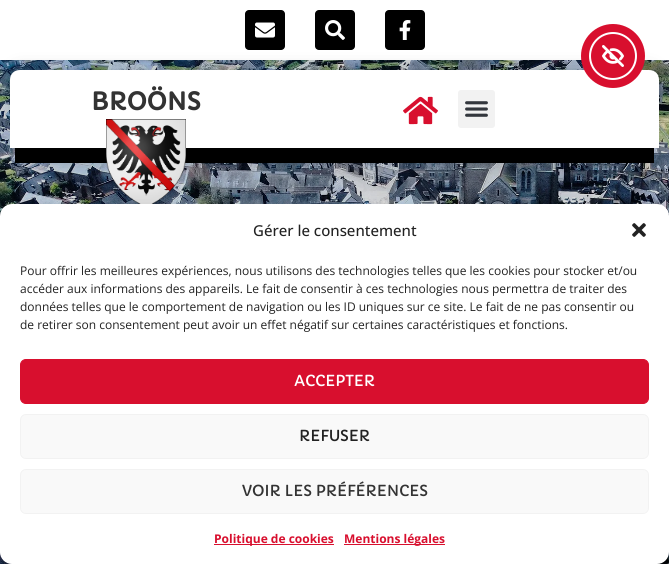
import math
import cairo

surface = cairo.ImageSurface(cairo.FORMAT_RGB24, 669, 564)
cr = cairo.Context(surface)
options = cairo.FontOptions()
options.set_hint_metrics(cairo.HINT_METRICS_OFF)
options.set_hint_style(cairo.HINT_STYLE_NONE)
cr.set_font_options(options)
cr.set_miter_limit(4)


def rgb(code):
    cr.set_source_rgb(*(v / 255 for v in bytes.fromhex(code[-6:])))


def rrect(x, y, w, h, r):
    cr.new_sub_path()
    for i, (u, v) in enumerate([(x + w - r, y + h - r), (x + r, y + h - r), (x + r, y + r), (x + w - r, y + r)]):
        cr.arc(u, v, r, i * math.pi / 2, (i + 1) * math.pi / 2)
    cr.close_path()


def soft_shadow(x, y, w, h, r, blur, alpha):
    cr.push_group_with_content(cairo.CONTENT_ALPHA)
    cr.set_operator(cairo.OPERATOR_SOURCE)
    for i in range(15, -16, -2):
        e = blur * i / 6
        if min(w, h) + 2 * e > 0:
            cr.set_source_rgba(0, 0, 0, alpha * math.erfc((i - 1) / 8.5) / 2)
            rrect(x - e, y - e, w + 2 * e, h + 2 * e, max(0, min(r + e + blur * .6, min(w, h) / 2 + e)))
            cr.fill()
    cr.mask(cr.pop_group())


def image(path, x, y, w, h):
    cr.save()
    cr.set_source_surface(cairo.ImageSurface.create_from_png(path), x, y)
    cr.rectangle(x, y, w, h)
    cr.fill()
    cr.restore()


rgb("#ffffff")
cr.paint()
image("img/2.png", 0, 60, 669, 504)
rgb("#000000")
rrect(245, 10, 40, 40, 4)
cr.fill()
rrect(315, 10, 40, 40, 4)
cr.fill()
image("img/4.png", 325, 20, 20, 20)
rrect(385, 10, 40, 40, 4)
cr.fill()
image("img/5.png", 399, 20, 12, 20)
cr.save()
cr.set_fill_rule(cairo.FILL_RULE_EVEN_ODD)
cr.new_path()
cr.move_to(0, 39)
cr.line_to(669, 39)
cr.line_to(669, 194)
cr.line_to(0, 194)
cr.close_path()
cr.move_to(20, 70)
cr.line_to(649, 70)
cr.curve_to(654.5, 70, 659, 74.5, 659, 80)
cr.line_to(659, 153)
cr.curve_to(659, 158.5, 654.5, 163, 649, 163)
cr.line_to(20, 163)
cr.curve_to(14.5, 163, 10, 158.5, 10, 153)
cr.line_to(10, 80)
cr.curve_to(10, 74.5, 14.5, 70, 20, 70)
cr.close_path()
cr.clip()
rgb("#000000")
soft_shadow(10, 70, 649, 93, 10, 10, 0.15)
cr.restore()
rgb("#ffffff")
cr.new_path()
cr.move_to(20, 70)
cr.line_to(649, 70)
cr.curve_to(655, 70, 659, 74, 659, 80)
cr.line_to(659, 148)
cr.line_to(10, 148)
cr.line_to(10, 80)
cr.curve_to(10, 74, 14, 70, 20, 70)
cr.close_path()
cr.fill()
rgb("#d80f2e")
cr.arc(613, 56, 32, 0, 2 * math.pi)
cr.fill()
cr.arc(613, 56, 23, 0, 2 * math.pi)
rgb("#ffffff")
cr.stroke()
image("img/1.png", 602, 45, 22, 22)
image("img/3.png", 255, 22, 20, 16)
rgb("#000000")
cr.rectangle(15, 148, 639, 15)
cr.fill()
image("img/6.png", 106, 119, 80, 85)
image("img/7.png", 403, 96, 35, 29)
rgb("#f2f2f2")
rrect(458, 90, 37, 38, 3)
cr.fill()
image("img/8.png", 465, 101, 23, 16)
rgb("#000000")
soft_shadow(0, 210, 669, 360, 12, 3, 0.23)
soft_shadow(0, 214, 669, 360, 12, 10, 0.19)
rgb("#ffffff")
rrect(0, 204, 669, 360, 12)
cr.fill()
image("img/9.png", 632, 223, 14, 14)
rgb("#d80f2e")
rrect(20.5, 359.5, 628, 44, 5.5)
cr.fill_preserve()
cr.set_line_width(1)
cr.stroke()
rgb("#f9f9f9")
rrect(20.5, 414.5, 628, 44, 5.5)
cr.fill_preserve()
rgb("#f2f2f2")
cr.stroke()
rgb("#f9f9f9")
rrect(20.5, 469.5, 628, 44, 5.5)
cr.fill_preserve()
rgb("#f2f2f2")
cr.stroke()
rgb("#d80f2e")
cr.rectangle(214, 544, 120, 1)
cr.fill()
cr.rectangle(344, 544, 101, 1)
cr.fill()
cr.select_font_face("Capriola", cairo.FONT_SLANT_NORMAL, cairo.FONT_WEIGHT_BOLD)
cr.set_font_size(24)
rgb("#333333")
cr.move_to(91, 110)
cr.show_text("BROÖNS")
cr.select_font_face("Open Sans Medium")
cr.set_font_size(15)
rgb("#222222")
cr.move_to(253, 236)
cr.show_text("Gérer le consentement")
cr.select_font_face("Open Sans")
cr.set_font_size(12)
for x, y, s in [
    (20, 275, "Pour offrir les meilleures expériences, nous utilisons des technologies telles que les cookies pour stocker et/ou"),
    (20, 293, "accéder aux informations des appareils. Le fait de consentir à ces technologies nous permettra de traiter des"),
    (20, 311, "données telles que le comportement de navigation ou les ID uniques sur ce site. Le fait de ne pas consentir ou"),
    (20, 329, "de retirer son consentement peut avoir un effet négatif sur certaines caractéristiques et fonctions."),
]:
    cr.move_to(x, y)
    cr.show_text(s)
cr.select_font_face("Capriola")
cr.set_font_size(15)
rgb("#ffffff")
cr.move_to(294, 386)
cr.show_text("ACCEPTER")
rgb("#222222")
cr.move_to(299, 441)
cr.show_text("REFUSER")
rgb("#333333")
cr.move_to(242, 496)
cr.show_text("VOIR LES PRÉFÉRENCES")
cr.select_font_face("Open Sans", cairo.FONT_SLANT_NORMAL, cairo.FONT_WEIGHT_BOLD)
cr.set_font_size(12)
rgb("#d80f2e")
cr.move_to(214, 543)
cr.show_text("Politique de cookies")
cr.move_to(344, 543)
cr.show_text("Mentions légales")
surface.write_to_png("page.png")
